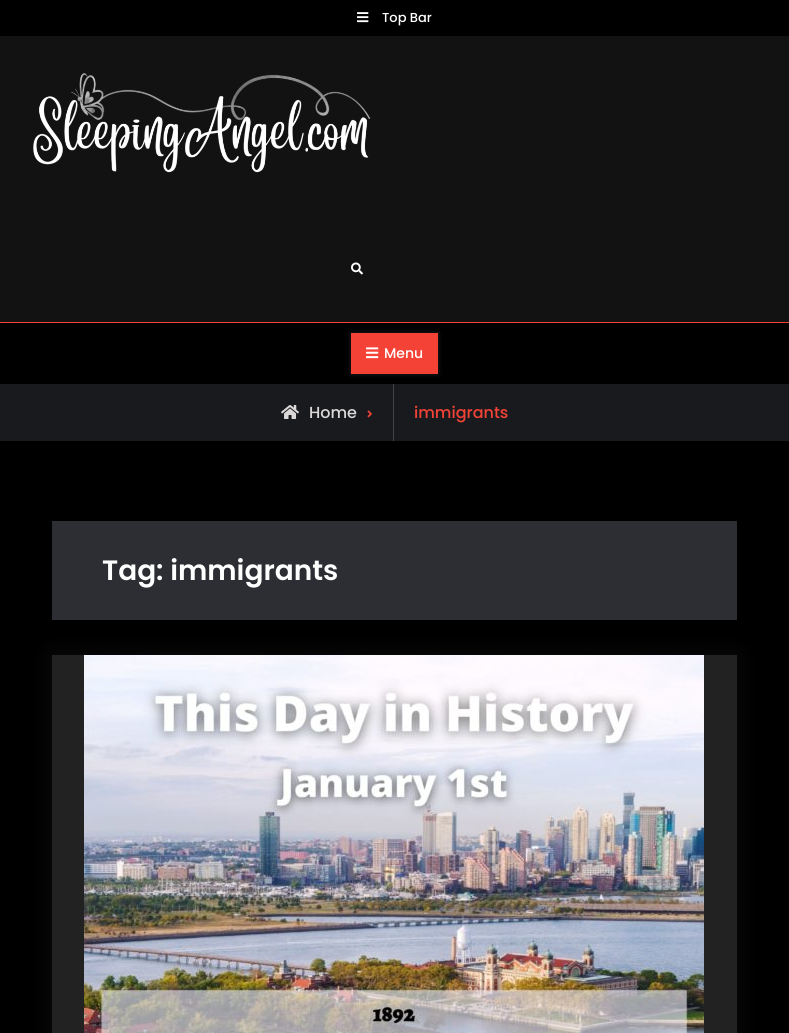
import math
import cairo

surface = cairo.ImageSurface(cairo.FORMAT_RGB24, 789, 1033)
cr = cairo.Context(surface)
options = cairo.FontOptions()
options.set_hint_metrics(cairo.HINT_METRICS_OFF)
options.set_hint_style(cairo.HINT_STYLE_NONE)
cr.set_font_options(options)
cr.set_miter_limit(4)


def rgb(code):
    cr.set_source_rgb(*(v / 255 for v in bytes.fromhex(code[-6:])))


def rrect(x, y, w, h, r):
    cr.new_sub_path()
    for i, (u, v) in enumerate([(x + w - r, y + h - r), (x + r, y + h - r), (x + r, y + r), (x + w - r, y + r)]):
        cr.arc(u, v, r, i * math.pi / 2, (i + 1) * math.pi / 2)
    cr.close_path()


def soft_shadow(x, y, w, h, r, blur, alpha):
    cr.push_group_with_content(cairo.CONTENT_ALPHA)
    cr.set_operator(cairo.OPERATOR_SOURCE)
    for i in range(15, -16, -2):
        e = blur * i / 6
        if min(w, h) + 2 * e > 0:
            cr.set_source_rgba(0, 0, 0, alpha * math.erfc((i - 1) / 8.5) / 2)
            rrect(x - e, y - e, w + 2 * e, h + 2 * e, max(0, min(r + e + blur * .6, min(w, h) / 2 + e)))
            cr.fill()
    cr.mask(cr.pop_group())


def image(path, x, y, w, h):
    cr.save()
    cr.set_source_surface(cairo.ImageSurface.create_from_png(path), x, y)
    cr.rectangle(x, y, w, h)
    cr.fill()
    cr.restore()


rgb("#000000")
cr.paint()
image("img/1.png", 357, 12, 12, 11)
rgb("#121213")
cr.rectangle(0, 36, 789, 286)
cr.fill()
image("img/2.png", 33, 73, 338, 100)
image("img/3.png", 351, 262, 12, 13)
rgb("#f44336")
cr.rectangle(0, 322, 789, 1)
cr.fill()
rgb("#222222")
soft_shadow(351, 333, 87, 41, 0, 2.5, 1)
rgb("#f44336")
cr.rectangle(351, 333, 87, 41)
cr.fill()
image("img/4.png", 366, 347, 13, 12)
rgb("#191a1e")
cr.rectangle(0, 384, 789, 57)
cr.fill()
rgb("#424346")
cr.rectangle(393, 384, 1, 57)
cr.fill()
image("img/5.png", 281, 405, 18, 14)
image("img/6.png", 367, 410, 5, 8)
rgb("#2c2e33")
cr.rectangle(52, 521, 685, 99)
cr.fill()
rgb("#7a7a7a")
soft_shadow(52, 655, 685, 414, 0, 12, 0.1)
rgb("#222222")
cr.rectangle(52, 655, 685, 378)
cr.fill()
image("img/7.png", 84, 655, 620, 378)
cr.select_font_face("Poppins Medium")
cr.set_font_size(13)
rgb("#ffffff")
cr.move_to(382, 22)
cr.show_text("Top Bar")
cr.set_font_size(14)
cr.move_to(384, 358)
cr.show_text("Menu")
cr.set_font_size(16)
rgb("#dad8d8")
cr.move_to(309, 418)
cr.show_text("Home")
rgb("#f44336")
cr.move_to(414, 418)
cr.show_text("immigrants")
cr.select_font_face("Poppins SemiBold")
cr.set_font_size(28)
rgb("#ffffff")
cr.move_to(102, 580)
cr.show_text("Tag: immigrants")
surface.write_to_png("page.png")
